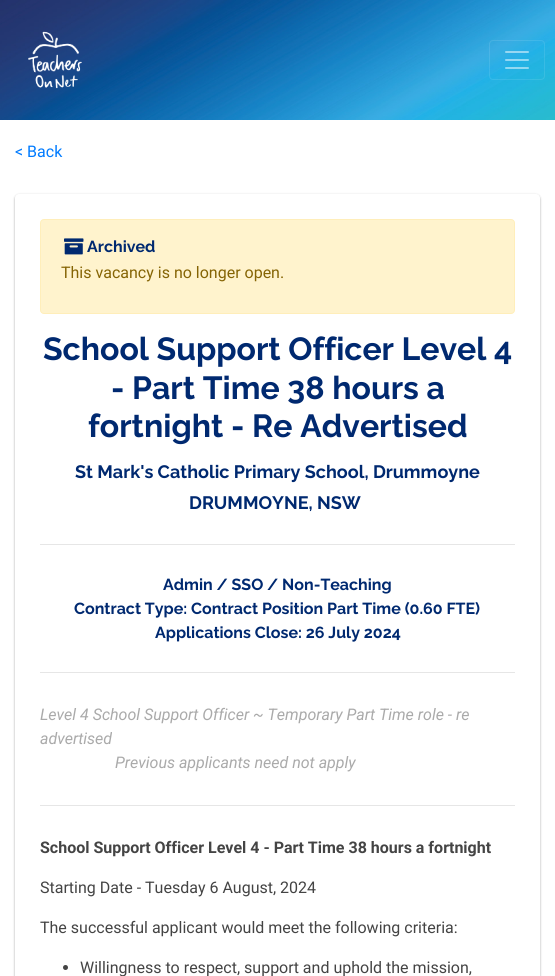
import math
import cairo

surface = cairo.ImageSurface(cairo.FORMAT_RGB24, 555, 976)
cr = cairo.Context(surface)
options = cairo.FontOptions()
options.set_hint_metrics(cairo.HINT_METRICS_OFF)
options.set_hint_style(cairo.HINT_STYLE_NONE)
cr.set_font_options(options)
cr.set_miter_limit(4)


def rgb(code):
    cr.set_source_rgb(*(v / 255 for v in bytes.fromhex(code[-6:])))


def rrect(x, y, w, h, r):
    cr.new_sub_path()
    for i, (u, v) in enumerate([(x + w - r, y + h - r), (x + r, y + h - r), (x + r, y + r), (x + w - r, y + r)]):
        cr.arc(u, v, r, i * math.pi / 2, (i + 1) * math.pi / 2)
    cr.close_path()


def soft_shadow(x, y, w, h, r, blur, alpha):
    cr.push_group_with_content(cairo.CONTENT_ALPHA)
    cr.set_operator(cairo.OPERATOR_SOURCE)
    for i in range(15, -16, -2):
        e = blur * i / 6
        if min(w, h) + 2 * e > 0:
            cr.set_source_rgba(0, 0, 0, alpha * math.erfc((i - 1) / 8.5) / 2)
            rrect(x - e, y - e, w + 2 * e, h + 2 * e, max(0, min(r + e + blur * .6, min(w, h) / 2 + e)))
            cr.fill()
    cr.mask(cr.pop_group())


def image(path, x, y, w, h):
    cr.save()
    cr.set_source_surface(cairo.ImageSurface.create_from_png(path), x, y)
    cr.rectangle(x, y, w, h)
    cr.fill()
    cr.restore()


rgb("#ffffff")
cr.paint()
image("img/1.png", 0, 0, 555, 120)
image("img/2.png", 28, 31, 54, 58)
rrect(489.5, 40.5, 55, 39, 3.5)
cr.set_source_rgba(1, 1, 1, 0.1)
cr.set_line_width(1)
cr.stroke()
image("img/3.png", 505, 51, 24, 18)
rgb("#000000")
soft_shadow(15, 195, 525, 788, 4, 1, 0.24)
soft_shadow(15, 195, 525, 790, 4, 1.5, 0.12)
rgb("#ffffff")
rrect(15, 194, 525, 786, 4)
cr.fill()
rgb("#fff3cd")
rrect(40.5, 219.5, 474, 94, 3.5)
cr.fill_preserve()
rgb("#ffeeba")
cr.stroke()
image("img/4.png", 64, 238, 20, 17)
for x, y, w, h, color in [
    (40, 544, 475, 1, "#e6e6e6"),
    (40, 672, 475, 1, "#e6e6e6"),
    (40, 805, 475, 1, "#e6e6e6"),
]:
    rgb(color)
    cr.rectangle(x, y, w, h)
    cr.fill()
rgb("#444444")
cr.arc(65.5, 967.5, 2.5, 0, 2 * math.pi)
cr.fill()
cr.select_font_face("Roboto")
cr.set_font_size(16)
rgb("#007bff")
cr.move_to(15, 157)
cr.show_text("< Back")
cr.select_font_face("Raleway", cairo.FONT_SLANT_NORMAL, cairo.FONT_WEIGHT_BOLD)
rgb("#002970")
cr.move_to(87, 252)
cr.show_text("Archived")
cr.select_font_face("Roboto")
rgb("#856404")
cr.move_to(61, 278)
cr.show_text("This vacancy is no longer open.")
cr.select_font_face("Raleway", cairo.FONT_SLANT_NORMAL, cairo.FONT_WEIGHT_BOLD)
cr.set_font_size(32)
rgb("#002970")
for x, y, s in [
    (43, 360, "School Support Officer Level 4"),
    (111, 399, "- Part Time 38 hours a"),
    (88, 437, "fortnight - Re Advertised"),
]:
    cr.move_to(x, y)
    cr.show_text(s)
cr.set_font_size(18)
cr.move_to(75, 478)
cr.show_text("St Mark's Catholic Primary School, Drummoyne")
cr.move_to(189, 509)
cr.show_text("DRUMMOYNE, NSW")
cr.set_font_size(16)
for x, y, s in [
    (163, 590, "Admin / SSO / Non-Teaching"),
    (74, 614, "Contract Type: Contract Position Part Time (0.60 FTE)"),
    (155, 638, "Applications Close: 26 July 2024"),
]:
    cr.move_to(x, y)
    cr.show_text(s)
cr.select_font_face("Roboto", cairo.FONT_SLANT_ITALIC)
rgb("#aaaaaa")
for x, y, s in [
    (40, 720, "Level 4 School Support Officer ~ Temporary Part Time role - re"),
    (40, 744, "advertised"),
    (115, 768, "Previous applicants need not apply"),
]:
    cr.move_to(x, y)
    cr.show_text(s)
cr.select_font_face("Roboto", cairo.FONT_SLANT_NORMAL, cairo.FONT_WEIGHT_BOLD)
rgb("#444444")
cr.move_to(40, 853)
cr.show_text("School Support Officer Level 4 - Part Time 38 hours a fortnight")
cr.select_font_face("Roboto")
for x, y, s in [
    (40, 893, "Starting Date - Tuesday 6 August, 2024"),
    (40, 933, "The successful applicant would meet the following criteria:"),
    (80, 973, "Willingness to respect, support and uphold the mission,"),
]:
    cr.move_to(x, y)
    cr.show_text(s)
surface.write_to_png("page.png")
